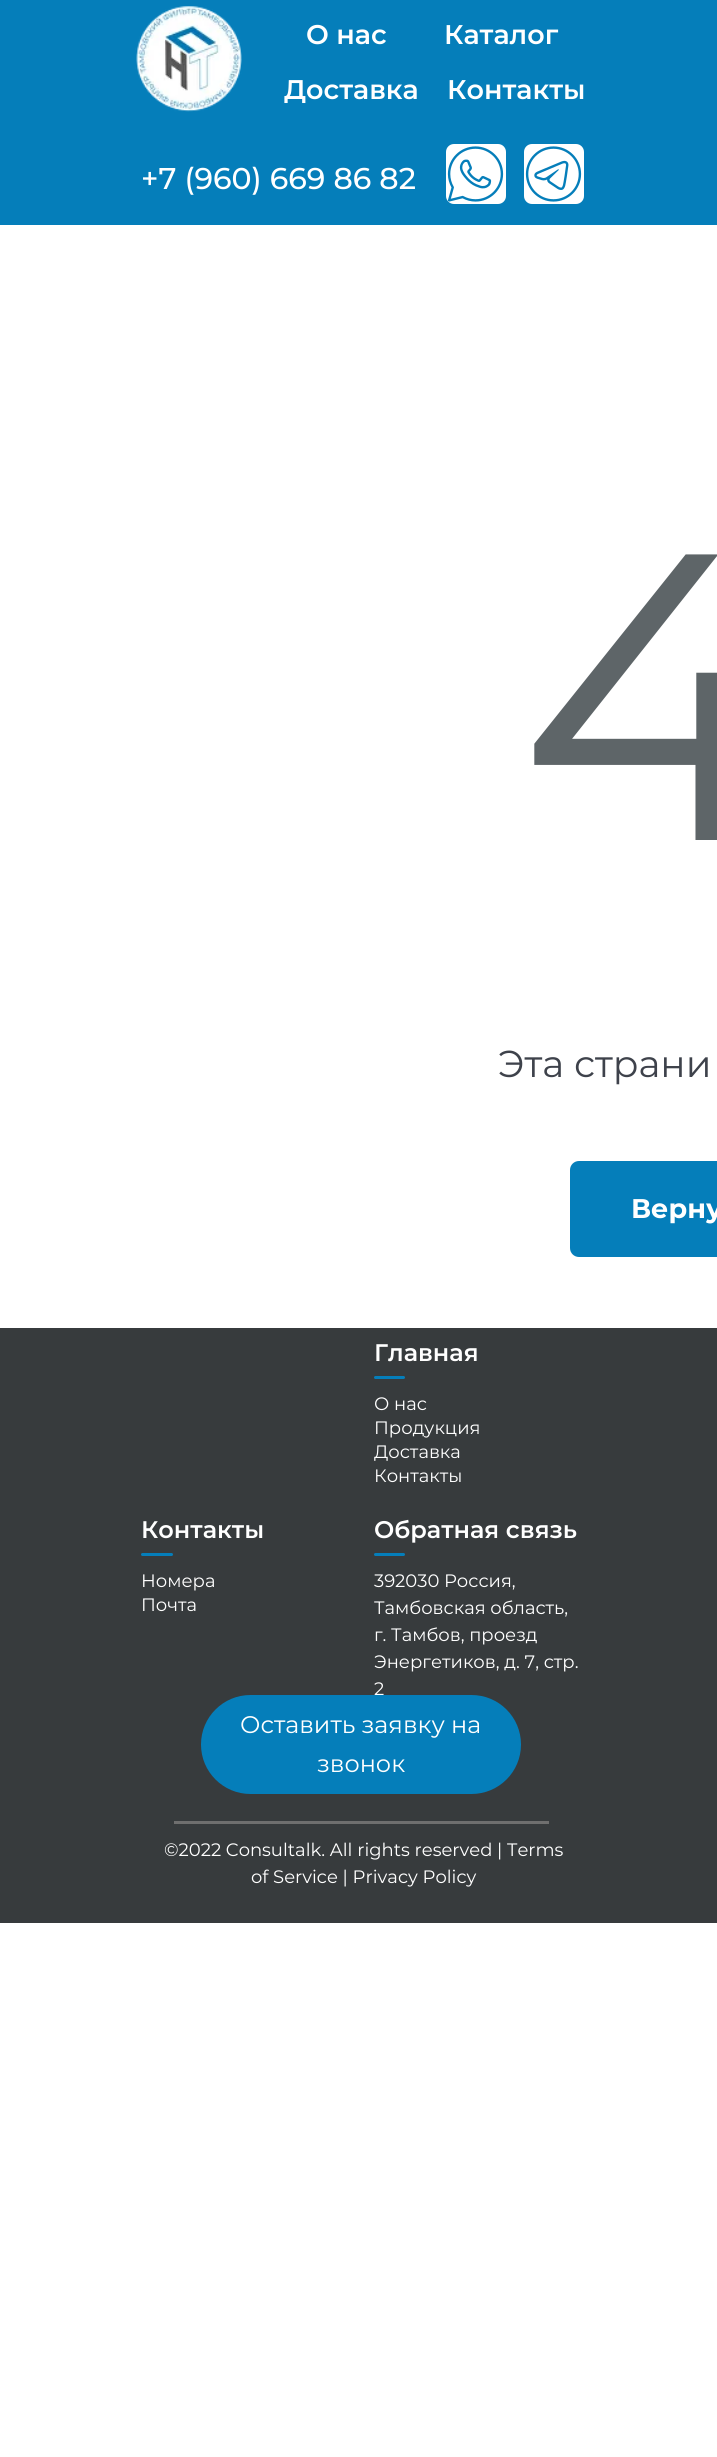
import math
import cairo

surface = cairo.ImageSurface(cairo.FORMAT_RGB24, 717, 2457)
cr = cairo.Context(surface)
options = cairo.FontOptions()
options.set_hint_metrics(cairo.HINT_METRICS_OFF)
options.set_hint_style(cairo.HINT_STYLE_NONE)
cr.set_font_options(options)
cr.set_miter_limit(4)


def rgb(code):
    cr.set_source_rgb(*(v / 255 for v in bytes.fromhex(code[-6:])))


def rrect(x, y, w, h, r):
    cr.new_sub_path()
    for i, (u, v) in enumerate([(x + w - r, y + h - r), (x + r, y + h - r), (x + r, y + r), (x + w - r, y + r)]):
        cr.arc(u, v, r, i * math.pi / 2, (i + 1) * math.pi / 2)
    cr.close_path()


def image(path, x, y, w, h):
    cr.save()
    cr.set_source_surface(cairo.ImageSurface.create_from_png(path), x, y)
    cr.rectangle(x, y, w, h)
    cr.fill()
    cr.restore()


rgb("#ffffff")
cr.paint()
rgb("#057eba")
cr.rectangle(0, 0, 717, 225)
cr.fill()
image("img/1.png", 135, 6, 107, 106)
rgb("#ffffff")
rrect(446, 144, 60, 60, 8)
cr.fill()
image("img/2.png", 447, 146, 57, 56)
rrect(524, 144, 60, 60, 8)
cr.fill()
image("img/3.png", 525, 146, 57, 56)
rgb("#057eba")
cr.new_path()
cr.move_to(579, 1161)
cr.line_to(717, 1161)
cr.line_to(717, 1257)
cr.line_to(579, 1257)
cr.curve_to(574, 1257, 570, 1253, 570, 1248)
cr.line_to(570, 1170)
cr.curve_to(570, 1165, 574, 1161, 579, 1161)
cr.close_path()
cr.fill()
rgb("#373b3d")
cr.rectangle(0, 1328, 717, 595)
cr.fill()
rgb("#057eba")
rrect(374, 1376, 31, 3, 1.5)
cr.fill()
rrect(141, 1553, 32, 3, 1.5)
cr.fill()
rrect(374, 1553, 31, 3, 1.5)
cr.fill()
rrect(201, 1695, 320, 99, 49.5)
cr.fill()
rgb("#6f6f6f")
cr.rectangle(174, 1821, 375, 3)
cr.fill()
cr.select_font_face("Montserrat SemiBold")
cr.set_font_size(27)
rgb("#ffffff")
for x, y, s in [
    (306, 44, "О нас"),
    (444, 44, "Каталог"),
    (284, 99, "Доставка"),
    (447, 99, "Контакты"),
]:
    cr.move_to(x, y)
    cr.show_text(s)
cr.select_font_face("Montserrat Medium")
cr.set_font_size(30)
cr.move_to(141, 189)
cr.show_text("+7 (960) 669 86 82")
cr.select_font_face("Montserrat")
cr.set_font_size(408)
rgb("#5e6568")
cr.move_to(518, 840)
cr.show_text("4")
cr.set_font_size(37.5)
rgb("#3e424b")
cr.move_to(498, 1077)
cr.show_text("Эта страни")
cr.select_font_face("Montserrat", cairo.FONT_SLANT_NORMAL, cairo.FONT_WEIGHT_BOLD)
cr.set_font_size(27)
rgb("#ffffff")
cr.move_to(631, 1218)
cr.show_text("Верну")
cr.select_font_face("Montserrat SemiBold")
cr.set_font_size(24)
cr.move_to(374, 1361)
cr.show_text("Главная")
cr.select_font_face("Montserrat")
cr.set_font_size(18)
for x, y, s in [
    (374, 1410, "О нас"),
    (374, 1434, "Продукция"),
    (374, 1458, "Доставка"),
    (374, 1482, "Контакты"),
]:
    cr.move_to(x, y)
    cr.show_text(s)
cr.select_font_face("Montserrat SemiBold")
cr.set_font_size(24)
cr.move_to(141, 1538)
cr.show_text("Контакты")
cr.move_to(374, 1538)
cr.show_text("Обратная связь")
cr.select_font_face("Montserrat")
cr.set_font_size(18)
for x, y, s in [
    (141, 1587, "Номера"),
    (374, 1587, "392030 Россия,"),
    (374, 1614, "Тамбовская область,"),
    (374, 1641, "г. Тамбов, проезд"),
    (374, 1668, "Энергетиков, д. 7, стр."),
    (374, 1695, "2"),
    (141, 1611, "Почта"),
]:
    cr.move_to(x, y)
    cr.show_text(s)
cr.set_font_size(24)
cr.move_to(240, 1733)
cr.show_text("Оставить заявку на")
cr.move_to(317, 1772)
cr.show_text("звонок")
cr.set_font_size(18)
cr.move_to(164, 1856)
cr.show_text("©2022 Consultalk. All rights reserved | Terms")
cr.move_to(251, 1883)
cr.show_text("of Service | Privacy Policy")
surface.write_to_png("page.png")
